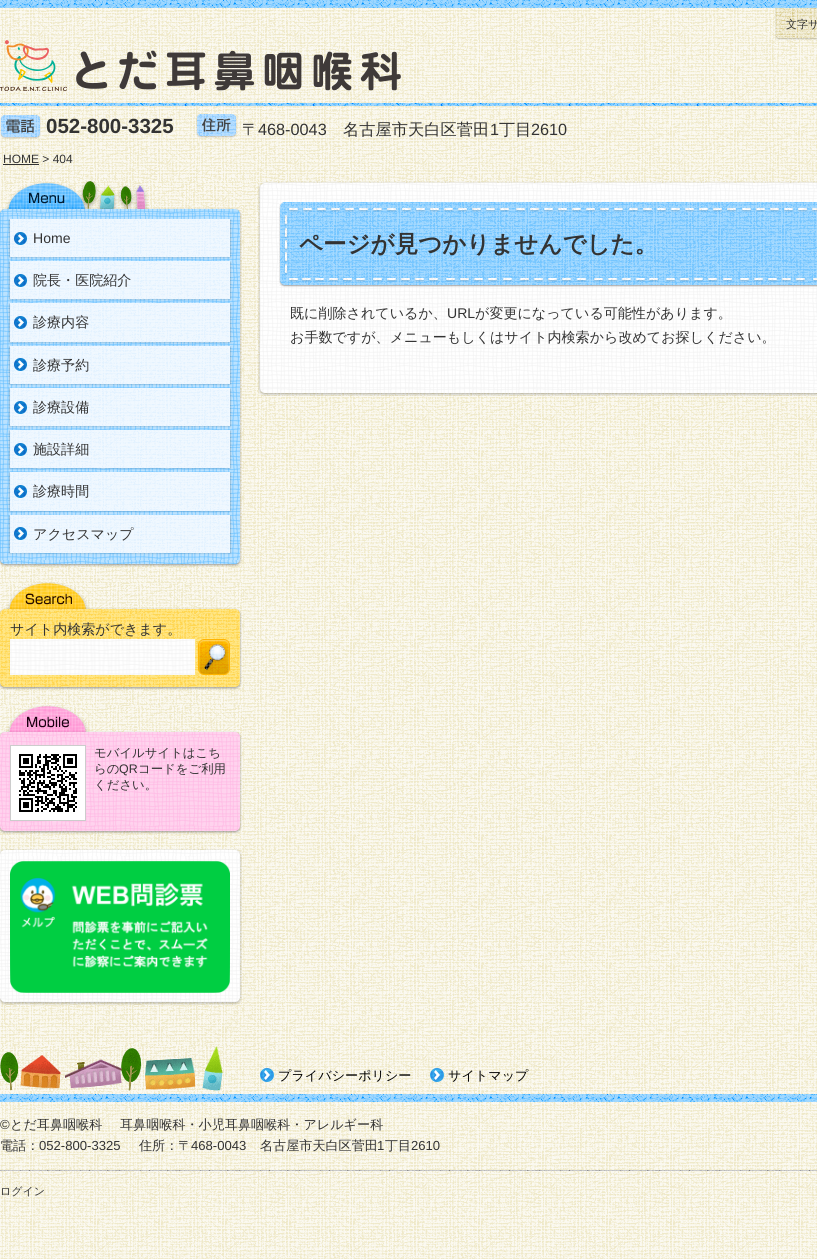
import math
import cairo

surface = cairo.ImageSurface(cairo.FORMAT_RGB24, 817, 1259)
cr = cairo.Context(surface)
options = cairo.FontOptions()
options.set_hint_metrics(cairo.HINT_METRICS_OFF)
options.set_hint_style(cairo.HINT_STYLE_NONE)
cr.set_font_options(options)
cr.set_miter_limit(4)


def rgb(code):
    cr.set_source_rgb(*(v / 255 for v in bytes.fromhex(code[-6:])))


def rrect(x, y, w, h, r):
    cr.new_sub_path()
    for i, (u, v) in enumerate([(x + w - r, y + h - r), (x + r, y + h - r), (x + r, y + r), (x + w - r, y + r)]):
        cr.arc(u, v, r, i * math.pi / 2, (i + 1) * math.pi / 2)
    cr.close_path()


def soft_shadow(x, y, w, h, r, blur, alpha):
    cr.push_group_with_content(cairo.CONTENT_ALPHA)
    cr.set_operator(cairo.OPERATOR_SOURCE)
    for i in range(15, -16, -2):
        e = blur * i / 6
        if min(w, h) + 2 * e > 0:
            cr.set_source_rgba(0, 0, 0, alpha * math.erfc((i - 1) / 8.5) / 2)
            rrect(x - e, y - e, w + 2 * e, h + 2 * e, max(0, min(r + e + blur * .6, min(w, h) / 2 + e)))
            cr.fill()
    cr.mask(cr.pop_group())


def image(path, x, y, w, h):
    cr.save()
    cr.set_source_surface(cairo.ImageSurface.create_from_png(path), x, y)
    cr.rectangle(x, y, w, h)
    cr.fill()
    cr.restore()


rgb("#ffffff")
cr.paint()
image("img/1.png", 0, 8, 817, 1251)
image("img/3.png", 0, 0, 817, 106)
image("img/2.png", 775, 8, 42, 32)
image("img/4.png", 0, 40, 401, 51)
image("img/5.png", 0, 115, 41, 24)
image("img/6.png", 196, 114, 41, 24)
rgb("#333333")
cr.rectangle(3, 164, 36, 1)
cr.fill()
image("img/7.png", 0, 181, 242, 386)
rgb("#000000")
soft_shadow(9, 220, 222, 38, 0, 0.5, 0.1)
image("img/8.png", 9, 219, 222, 38)
soft_shadow(9, 262, 222, 38, 0, 0.5, 0.1)
image("img/9.png", 9, 261, 222, 38)
soft_shadow(9, 304, 222, 39, 0, 0.5, 0.1)
image("img/10.png", 9, 303, 222, 39)
soft_shadow(9, 347, 222, 38, 0, 0.5, 0.1)
image("img/11.png", 9, 346, 222, 38)
soft_shadow(9, 389, 222, 38, 0, 0.5, 0.1)
image("img/12.png", 9, 388, 222, 38)
soft_shadow(9, 431, 222, 38, 0, 0.5, 0.1)
image("img/13.png", 9, 430, 222, 38)
soft_shadow(9, 473, 222, 39, 0, 0.5, 0.1)
image("img/14.png", 9, 472, 222, 39)
soft_shadow(9, 516, 222, 38, 0, 0.5, 0.1)
image("img/15.png", 9, 515, 222, 38)
image("img/16.png", 0, 614, 242, 76)
image("img/17.png", 0, 582, 242, 32)
image("img/18.png", 10, 639, 185, 36)
image("img/19.png", 198, 639, 32, 36)
image("img/20.png", 0, 737, 242, 97)
image("img/21.png", 0, 705, 242, 32)
cr.rectangle(10.5, 745.5, 75, 75)
rgb("#cccccc")
cr.set_line_width(1)
cr.stroke()
image("img/22.png", 11, 746, 74, 74)
image("img/23.png", 0, 849, 242, 156)
image("img/24.png", 10, 861, 220, 132)
image("img/25.png", 258, 181, 559, 215)
image("img/26.png", 279, 202, 538, 85)
image("img/27.png", 0, 1046, 223, 45)
image("img/28.png", 260, 1068, 14, 14)
image("img/29.png", 430, 1068, 14, 14)
image("img/30.png", 0, 1094, 817, 77)
cr.select_font_face("WenQuanYi Zen Hei Medium")
cr.set_font_size(11)
rgb("#333333")
cr.move_to(786, 28)
cr.show_text("文字サ")
cr.select_font_face("Liberation Sans", cairo.FONT_SLANT_NORMAL, cairo.FONT_WEIGHT_BOLD)
cr.set_font_size(20.5)
cr.move_to(46, 133)
cr.show_text("052-800-3325")
cr.select_font_face("WenQuanYi Zen Hei Medium")
cr.set_font_size(16.25)
cr.move_to(242, 135)
cr.show_text("〒")
cr.select_font_face("Liberation Sans")
cr.move_to(258, 135)
cr.show_text("468-0043")
cr.select_font_face("WenQuanYi Zen Hei Medium")
cr.move_to(343, 135)
cr.show_text("名古屋市天白区菅田")
cr.select_font_face("Liberation Sans")
cr.move_to(490, 135)
cr.show_text("1")
cr.select_font_face("WenQuanYi Zen Hei Medium")
cr.move_to(499, 135)
cr.show_text("丁目")
cr.select_font_face("Liberation Sans")
cr.move_to(531, 135)
cr.show_text("2610")
cr.set_font_size(12)
cr.move_to(3, 163)
cr.show_text("HOME > 404")
cr.set_font_size(14.05)
cr.move_to(33, 243)
cr.show_text("Home")
cr.select_font_face("WenQuanYi Zen Hei Medium")
for x, y, s in [
    (33, 285, "院長・医院紹介"),
    (33, 327, "診療内容"),
    (33, 370, "診療予約"),
    (33, 412, "診療設備"),
    (33, 454, "施設詳細"),
    (33, 496, "診療時間"),
    (33, 539, "アクセスマップ"),
    (10, 634, "サイト内検索ができます。"),
]:
    cr.move_to(x, y)
    cr.show_text(s)
cr.set_font_size(12.4)
cr.move_to(94, 757)
cr.show_text("モバイルサイトはこち")
cr.move_to(94, 773)
cr.show_text("らの")
cr.select_font_face("Liberation Sans")
cr.move_to(119, 773)
cr.show_text("QR")
cr.select_font_face("WenQuanYi Zen Hei Medium")
cr.move_to(138, 773)
cr.show_text("コードをご利用")
cr.move_to(94, 789)
cr.show_text("ください。")
cr.select_font_face("WenQuanYi Zen Hei", cairo.FONT_SLANT_NORMAL, cairo.FONT_WEIGHT_BOLD)
cr.set_font_size(23.5)
cr.move_to(299, 252)
cr.show_text("ページが見つかりませんでした。")
cr.select_font_face("WenQuanYi Zen Hei Medium")
cr.set_font_size(14.05)
cr.move_to(290, 318)
cr.show_text("既に削除されているか、")
cr.select_font_face("Liberation Sans")
cr.move_to(447, 318)
cr.show_text("URL")
cr.select_font_face("WenQuanYi Zen Hei Medium")
cr.move_to(475, 318)
cr.show_text("が変更になっている可能性があります。")
cr.move_to(290, 342)
cr.show_text("お手数ですが、メニューもしくはサイト内検索から改めてお探しください。")
cr.set_font_size(13.1)
rgb("#000000")
cr.move_to(278, 1080)
cr.show_text("プライバシーポリシー")
cr.move_to(448, 1080)
cr.show_text("サイトマップ")
cr.select_font_face("Liberation Sans")
rgb("#333333")
cr.move_to(0, 1129)
cr.show_text("©")
cr.select_font_face("WenQuanYi Zen Hei Medium")
for x, y, s in [
    (10, 1129, "とだ耳鼻咽喉科"),
    (120, 1129, "耳鼻咽喉科・小児耳鼻咽喉科・アレルギー科"),
    (0, 1150, "電話："),
]:
    cr.move_to(x, y)
    cr.show_text(s)
cr.select_font_face("Liberation Sans")
cr.move_to(39, 1150)
cr.show_text("052-800-3325")
cr.select_font_face("WenQuanYi Zen Hei Medium")
cr.move_to(139, 1150)
cr.show_text("住所：〒")
cr.select_font_face("Liberation Sans")
cr.move_to(191, 1150)
cr.show_text("468-0043")
cr.select_font_face("WenQuanYi Zen Hei Medium")
cr.move_to(260, 1150)
cr.show_text("名古屋市天白区菅田")
cr.select_font_face("Liberation Sans")
cr.move_to(377, 1150)
cr.show_text("1")
cr.select_font_face("WenQuanYi Zen Hei Medium")
cr.move_to(385, 1150)
cr.show_text("丁目")
cr.select_font_face("Liberation Sans")
cr.move_to(411, 1150)
cr.show_text("2610")
cr.select_font_face("WenQuanYi Zen Hei Medium")
cr.set_font_size(11)
cr.move_to(0, 1195)
cr.show_text("ログイン")
surface.write_to_png("page.png")
